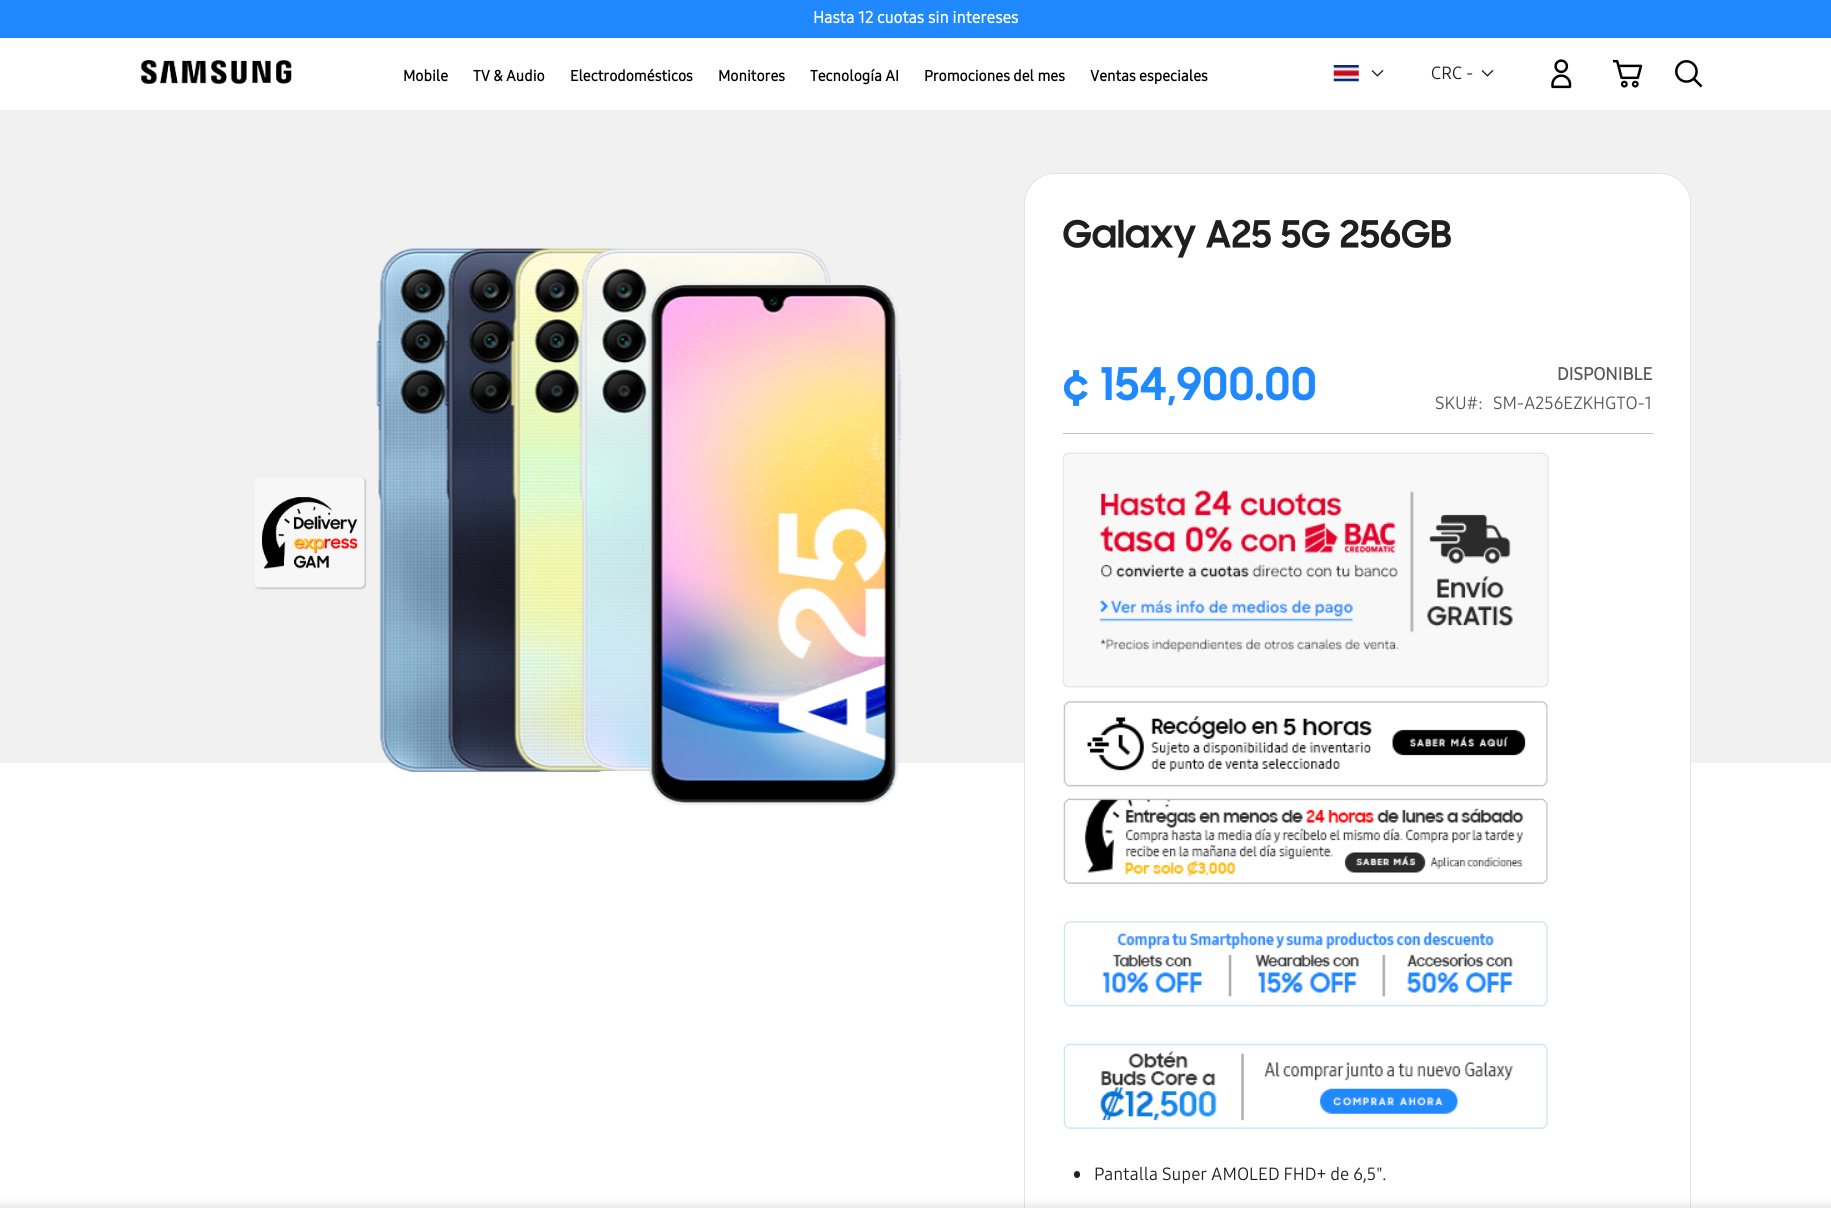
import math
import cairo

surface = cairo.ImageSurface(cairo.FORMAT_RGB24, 1831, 1208)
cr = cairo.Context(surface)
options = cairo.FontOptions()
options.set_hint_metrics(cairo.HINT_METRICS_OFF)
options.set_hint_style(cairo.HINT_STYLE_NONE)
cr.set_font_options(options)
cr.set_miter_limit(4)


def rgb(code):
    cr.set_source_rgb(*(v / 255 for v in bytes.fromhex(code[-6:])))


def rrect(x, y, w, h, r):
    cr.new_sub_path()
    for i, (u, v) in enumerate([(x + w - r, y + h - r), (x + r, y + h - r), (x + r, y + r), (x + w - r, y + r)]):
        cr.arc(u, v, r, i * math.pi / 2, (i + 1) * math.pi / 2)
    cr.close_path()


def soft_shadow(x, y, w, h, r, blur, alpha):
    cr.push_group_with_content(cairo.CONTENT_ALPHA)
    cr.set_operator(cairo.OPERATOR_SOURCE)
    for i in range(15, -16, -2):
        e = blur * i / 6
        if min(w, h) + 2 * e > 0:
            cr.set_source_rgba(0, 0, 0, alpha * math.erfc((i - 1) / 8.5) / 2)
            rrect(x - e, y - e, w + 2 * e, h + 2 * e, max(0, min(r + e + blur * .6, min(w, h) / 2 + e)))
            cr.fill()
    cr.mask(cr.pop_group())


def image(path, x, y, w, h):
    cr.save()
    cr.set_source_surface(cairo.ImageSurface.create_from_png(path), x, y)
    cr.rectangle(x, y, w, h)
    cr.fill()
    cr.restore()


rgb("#ffffff")
cr.paint()
rgb("#2089ff")
cr.rectangle(0, 0, 1831, 38)
cr.fill()
image("img/1.png", 141, 60, 151, 24)
image("img/2.png", 1333, 65, 26, 17)
image("img/3.png", 1371, 70, 13, 7)
image("img/3.png", 1481, 70, 13, 7)
image("img/4.png", 1551, 59, 21, 30)
image("img/5.png", 1613, 59, 30, 29)
image("img/6.png", 1675, 60, 28, 28)
rgb("#f1f1f1")
cr.rectangle(0, 110, 1831, 653)
cr.fill()
image("img/7.png", 254, 477, 113, 113)
image("img/8.png", 376, 248, 526, 557)
rgb("#ffffff")
rrect(1024.5, 173.5, 666, 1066, 30.5)
cr.fill_preserve()
rgb("#e4e4e4")
cr.set_line_width(1)
cr.stroke()
image("img/9.png", 1063, 219, 388, 39)
rgb("#c1c1c1")
cr.rectangle(1063, 433, 590, 1)
cr.fill()
image("img/10.png", 1063, 366, 252, 40)
image("img/11.png", 1062, 452, 487, 236)
image("img/12.png", 1063, 701, 485, 86)
image("img/13.png", 1063, 798, 485, 86)
image("img/14.png", 1063, 921, 485, 86)
image("img/15.png", 1063, 1043, 485, 86)
rgb("#1f1f1f")
rrect(1074, 1171, 6, 7, 3)
cr.fill()
rgb("#000000")
soft_shadow(-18, 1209, 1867, 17, 0, 6, 0.2)
cr.select_font_face("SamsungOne", cairo.FONT_SLANT_NORMAL, cairo.FONT_WEIGHT_BOLD)
cr.set_font_size(16.25)
rgb("#ffffff")
cr.move_to(813, 23)
cr.show_text("Hasta 12 cuotas sin intereses")
cr.set_font_size(15)
rgb("#000000")
for x, y, s in [
    (403, 81, "Mobile"),
    (473, 81, "TV & Audio"),
    (570, 81, "Electrodomésticos"),
    (718, 81, "Monitores"),
    (810, 81, "Tecnología AI"),
    (924, 81, "Promociones del mes"),
    (1090, 81, "Ventas especiales"),
]:
    cr.move_to(x, y)
    cr.show_text(s)
cr.select_font_face("SamsungOne")
cr.set_font_size(17.5)
rgb("#1f1f1f")
cr.move_to(1431, 79)
cr.show_text("CRC -")
cr.select_font_face("SamsungOne", cairo.FONT_SLANT_NORMAL, cairo.FONT_WEIGHT_BOLD)
rgb("#575757")
cr.move_to(1557, 380)
cr.show_text("DISPONIBLE")
cr.select_font_face("SamsungOne")
cr.move_to(1435, 409)
cr.show_text("SKU#:")
cr.move_to(1493, 409)
cr.show_text("SM-A256EZKHGTO-1")
rgb("#1f1f1f")
cr.move_to(1094, 1180)
cr.show_text("Pantalla Super AMOLED FHD+ de 6,5\".")
surface.write_to_png("page.png")
